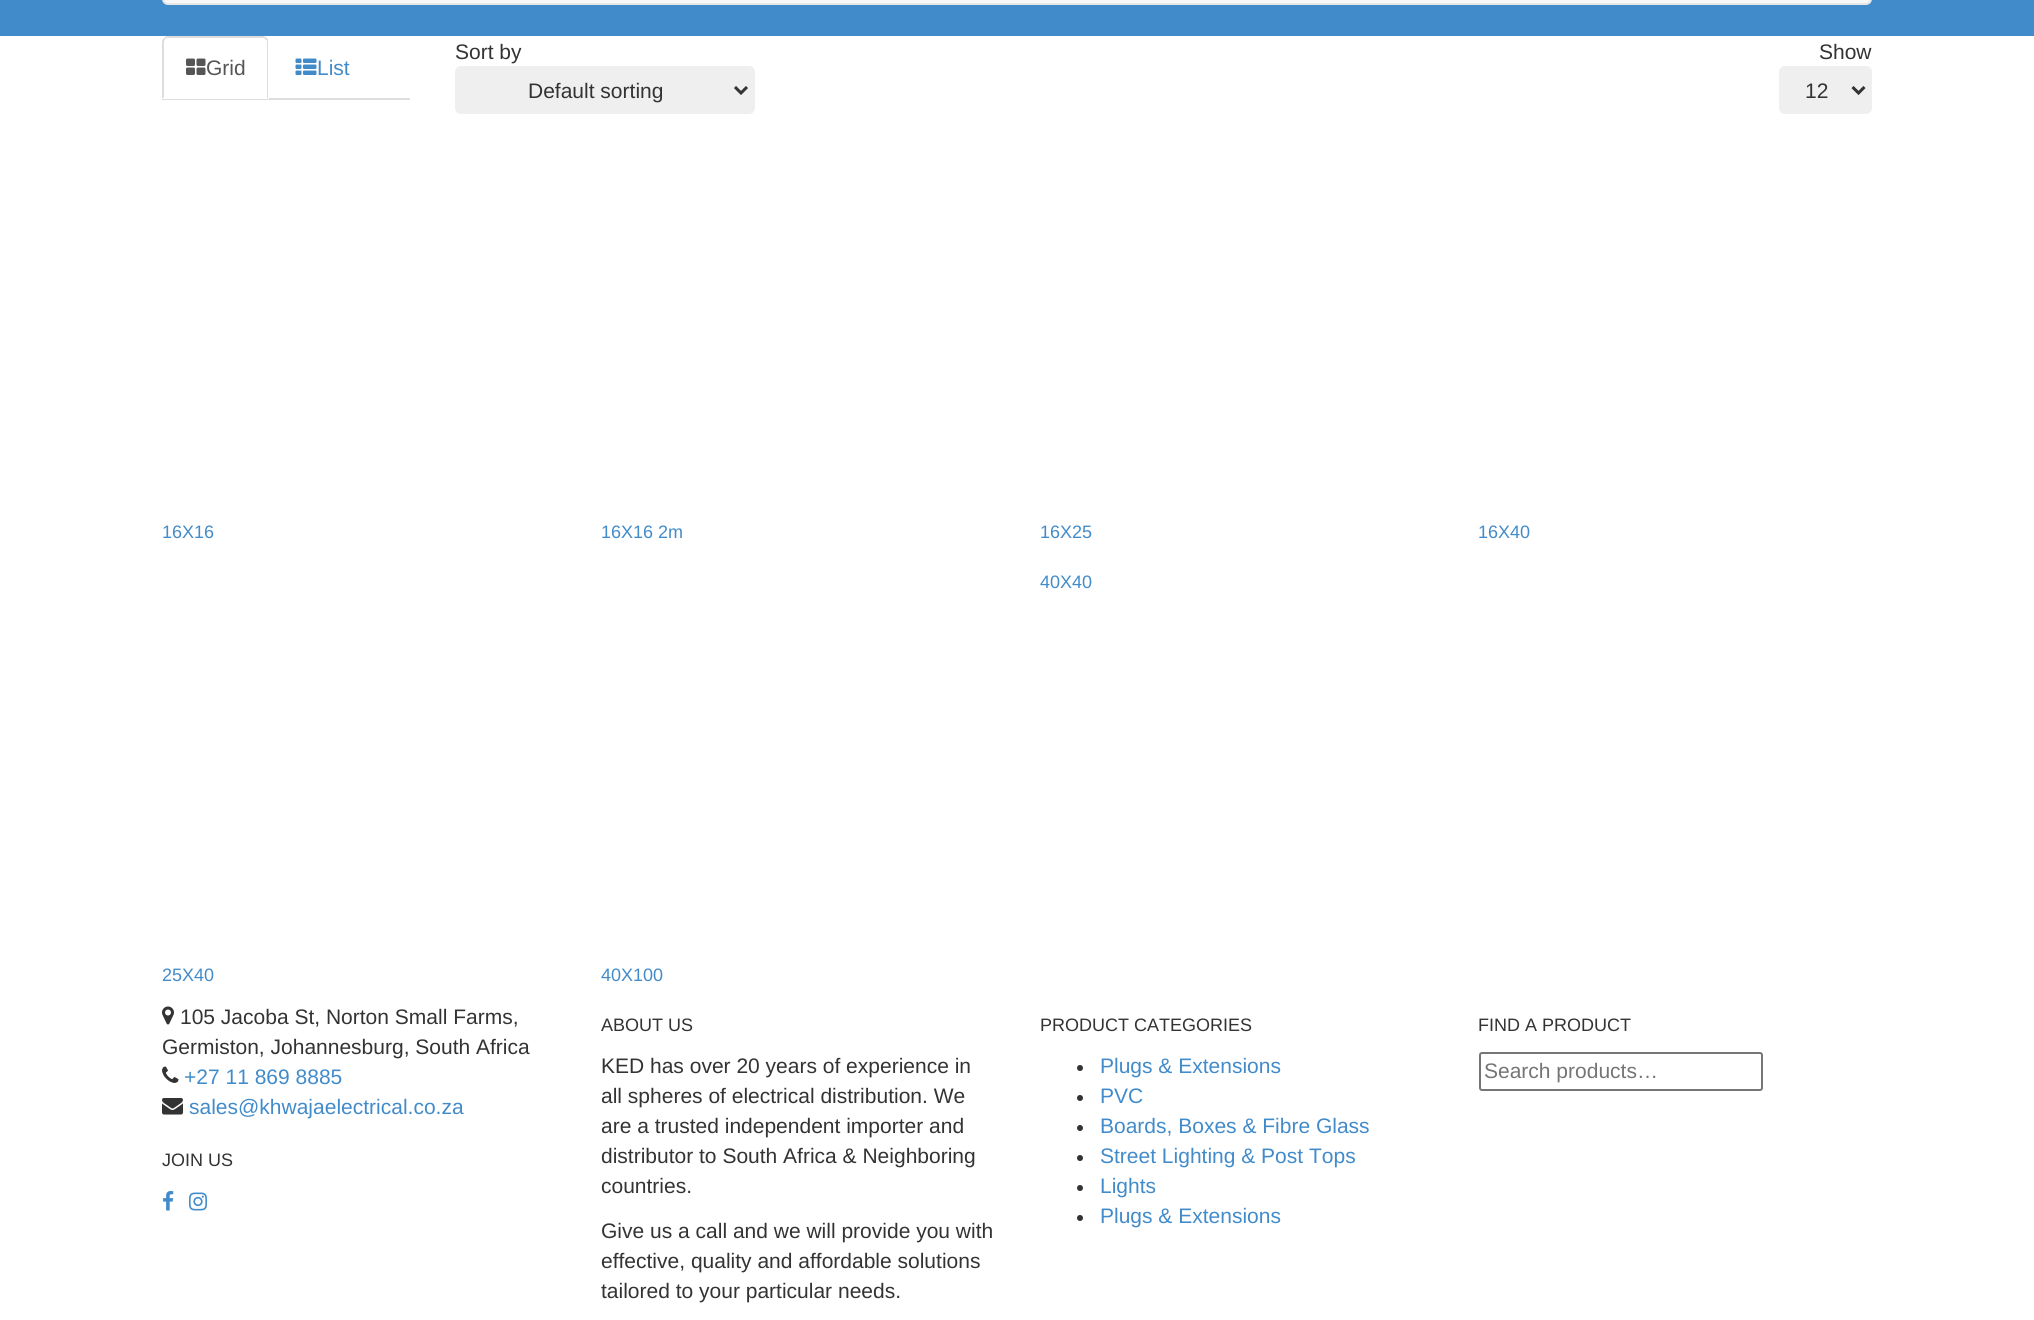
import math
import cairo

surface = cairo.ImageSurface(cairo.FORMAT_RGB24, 2034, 1320)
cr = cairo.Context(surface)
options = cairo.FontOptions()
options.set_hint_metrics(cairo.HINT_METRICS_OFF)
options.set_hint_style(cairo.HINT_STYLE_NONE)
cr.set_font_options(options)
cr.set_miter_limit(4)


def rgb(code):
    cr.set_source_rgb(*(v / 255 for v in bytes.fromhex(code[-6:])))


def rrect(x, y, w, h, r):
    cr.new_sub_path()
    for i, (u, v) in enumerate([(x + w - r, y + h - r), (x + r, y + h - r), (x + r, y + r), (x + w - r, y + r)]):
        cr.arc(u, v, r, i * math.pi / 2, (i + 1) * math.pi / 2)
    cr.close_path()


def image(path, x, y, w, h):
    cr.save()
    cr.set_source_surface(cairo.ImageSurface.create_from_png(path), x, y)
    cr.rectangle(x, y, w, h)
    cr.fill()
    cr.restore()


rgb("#ffffff")
cr.paint()
rgb("#428bca")
cr.rectangle(0, 0, 2034, 36)
cr.fill()
rgb("#f8f8f8")
rrect(163, -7, 1708, 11, 5)
cr.fill_preserve()
rgb("#e7e7e7")
cr.stroke()
rgb("#dddddd")
cr.rectangle(162, 98, 248, 2)
cr.fill()
rgb("#ffffff")
cr.new_path()
cr.move_to(168, 36)
cr.line_to(263, 36)
cr.curve_to(266.5, 36, 269, 38.5, 269, 42)
cr.line_to(269, 99)
cr.line_to(162, 99)
cr.line_to(162, 42)
cr.curve_to(162, 38.5, 164.5, 36, 168, 36)
cr.close_path()
cr.fill()
rgb("#dddddd")
cr.new_path()
cr.move_to(168, 36)
cr.curve_to(166, 36, 165, 37, 164, 38)
cr.line_to(165, 39)
cr.curve_to(166, 38, 167, 38, 168, 38)
cr.line_to(262, 38)
cr.curve_to(263, 38, 265, 38, 265, 39)
cr.line_to(267, 38)
cr.curve_to(266, 37, 264, 36, 262, 36)
cr.close_path()
cr.fill()
cr.new_path()
cr.move_to(267, 38)
cr.curve_to(268, 39, 268, 41, 268, 42)
cr.line_to(268, 98)
cr.line_to(267, 98)
cr.line_to(267, 41)
cr.line_to(265, 39)
cr.close_path()
cr.fill()
cr.new_path()
cr.move_to(162, 99)
cr.line_to(164, 97)
cr.line_to(164, 42)
cr.line_to(165, 39)
cr.line_to(164, 38)
cr.curve_to(163, 39, 162, 40, 162, 42)
cr.close_path()
cr.fill()
image("img/1.png", 186, 58, 20, 17)
image("img/2.png", 295, 58, 22, 17)
rgb("#efefef")
rrect(455, 66, 300, 48, 6)
cr.fill()
cr.new_path()
cr.move_to(735, 87)
cr.line_to(741, 93)
cr.line_to(747, 87)
rgb("#333333")
cr.set_line_width(3)
cr.stroke()
rgb("#efefef")
rrect(1779, 66, 93, 48, 6)
cr.fill()
cr.new_path()
cr.move_to(1852.5, 87)
cr.line_to(1858.5, 93)
cr.line_to(1864.5, 87)
rgb("#333333")
cr.stroke()
image("img/3.png", 162, 1006, 12, 19)
image("img/4.png", 162, 1066, 17, 17)
image("img/5.png", 162, 1098, 21, 17)
image("img/6.png", 163, 1191, 11, 20)
image("img/7.png", 189, 1192, 18, 19)
cr.arc(1080, 1068, 3, 0, 2 * math.pi)
cr.fill()
cr.arc(1080, 1098, 3, 0, 2 * math.pi)
cr.fill()
cr.arc(1080, 1128, 3, 0, 2 * math.pi)
cr.fill()
cr.arc(1080, 1158, 3, 0, 2 * math.pi)
cr.fill()
cr.arc(1080, 1188, 3, 0, 2 * math.pi)
cr.fill()
cr.arc(1080, 1218, 3, 0, 2 * math.pi)
cr.fill()
rrect(1480, 1053, 282, 37, 2)
rgb("#767676")
cr.set_line_width(2)
cr.stroke()
cr.select_font_face("Liberation Sans")
cr.set_font_size(21)
rgb("#555555")
cr.move_to(206, 75)
cr.show_text("Grid")
rgb("#428bca")
cr.move_to(317, 75)
cr.show_text("List")
rgb("#333333")
for x, y, s in [
    (455, 59, "Sort by"),
    (528, 98, "Default sorting"),
    (1819, 59, "Show"),
    (1805, 98, "12"),
]:
    cr.move_to(x, y)
    cr.show_text(s)
cr.set_font_size(18)
rgb("#428bca")
for x, y, s in [
    (162, 538, "16X16"),
    (601, 538, "16X16 2m"),
    (1040, 538, "16X25"),
    (1478, 538, "16X40"),
    (1040, 588, "40X40"),
    (162, 981, "25X40"),
    (601, 981, "40X100"),
]:
    cr.move_to(x, y)
    cr.show_text(s)
cr.set_font_size(21)
rgb("#333333")
cr.move_to(180, 1024)
cr.show_text("105 Jacoba St, Norton Small Farms,")
cr.move_to(162, 1054)
cr.show_text("Germiston, Johannesburg, South Africa")
rgb("#428bca")
cr.move_to(184, 1084)
cr.show_text("+27 11 869 8885")
cr.move_to(189, 1114)
cr.show_text("sales@khwajaelectrical.co.za")
cr.set_font_size(18)
rgb("#333333")
cr.move_to(162, 1166)
cr.show_text("JOIN US")
cr.move_to(601, 1031)
cr.show_text("ABOUT US")
cr.set_font_size(21)
for x, y, s in [
    (601, 1073, "KED has over 20 years of experience in"),
    (601, 1103, "all spheres of electrical distribution. We"),
    (601, 1133, "are a trusted independent importer and"),
    (601, 1163, "distributor to South Africa & Neighboring"),
    (601, 1193, "countries."),
    (601, 1238, "Give us a call and we will provide you with"),
    (601, 1268, "effective, quality and affordable solutions"),
    (601, 1298, "tailored to your particular needs."),
]:
    cr.move_to(x, y)
    cr.show_text(s)
cr.set_font_size(18)
cr.move_to(1040, 1031)
cr.show_text("PRODUCT CATEGORIES")
cr.set_font_size(21)
rgb("#428bca")
for x, y, s in [
    (1100, 1073, "Plugs & Extensions"),
    (1100, 1103, "PVC"),
    (1100, 1133, "Boards, Boxes & Fibre Glass"),
    (1100, 1163, "Street Lighting & Post Tops"),
    (1100, 1193, "Lights"),
    (1100, 1223, "Plugs & Extensions"),
]:
    cr.move_to(x, y)
    cr.show_text(s)
cr.set_font_size(18)
rgb("#333333")
cr.move_to(1478, 1031)
cr.show_text("FIND A PRODUCT")
cr.set_font_size(21)
rgb("#757575")
cr.move_to(1484, 1078)
cr.show_text("Search products…")
surface.write_to_png("page.png")
